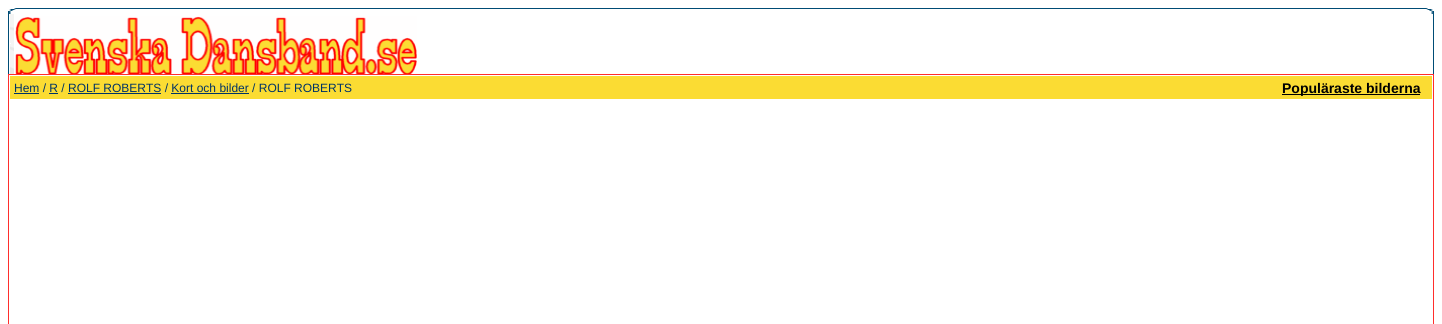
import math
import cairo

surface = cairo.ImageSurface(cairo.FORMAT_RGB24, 1442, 324)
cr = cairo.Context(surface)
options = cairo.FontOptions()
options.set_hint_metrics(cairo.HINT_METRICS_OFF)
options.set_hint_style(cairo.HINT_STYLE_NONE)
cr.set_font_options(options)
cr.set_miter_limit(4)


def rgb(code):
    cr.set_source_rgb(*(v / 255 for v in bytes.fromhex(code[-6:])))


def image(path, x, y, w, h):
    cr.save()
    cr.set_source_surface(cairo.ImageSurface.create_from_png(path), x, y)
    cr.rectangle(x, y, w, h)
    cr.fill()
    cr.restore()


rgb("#ffffff")
cr.paint()
image("img/1.png", 8, 8, 1426, 6)
image("img/2.png", 8, 14, 6, 60)
image("img/3.png", 15, 16, 402, 58)
for x, y, w, h, color in [
    (1433, 14, 1, 60, "#004c75"),
    (8, 74, 1426, 250, "#ff2e2c"),
    (9, 75, 1424, 249, "#ffffff"),
    (10, 76, 1422, 23, "#fbdc33"),
    (14, 93, 25, 1, "#003366"),
    (49, 93, 9, 1, "#003366"),
    (68, 93, 93, 1, "#003366"),
    (171, 93, 78, 1, "#003366"),
    (1282, 94, 138, 1, "#000000"),
]:
    rgb(color)
    cr.rectangle(x, y, w, h)
    cr.fill()
cr.select_font_face("Liberation Sans")
cr.set_font_size(12)
rgb("#003366")
cr.move_to(14, 92)
cr.show_text("Hem / R / ROLF ROBERTS / Kort och bilder / ROLF ROBERTS")
cr.select_font_face("Liberation Sans", cairo.FONT_SLANT_NORMAL, cairo.FONT_WEIGHT_BOLD)
cr.set_font_size(14)
rgb("#000000")
cr.move_to(1282, 93)
cr.show_text("Populäraste bilderna")
surface.write_to_png("page.png")
